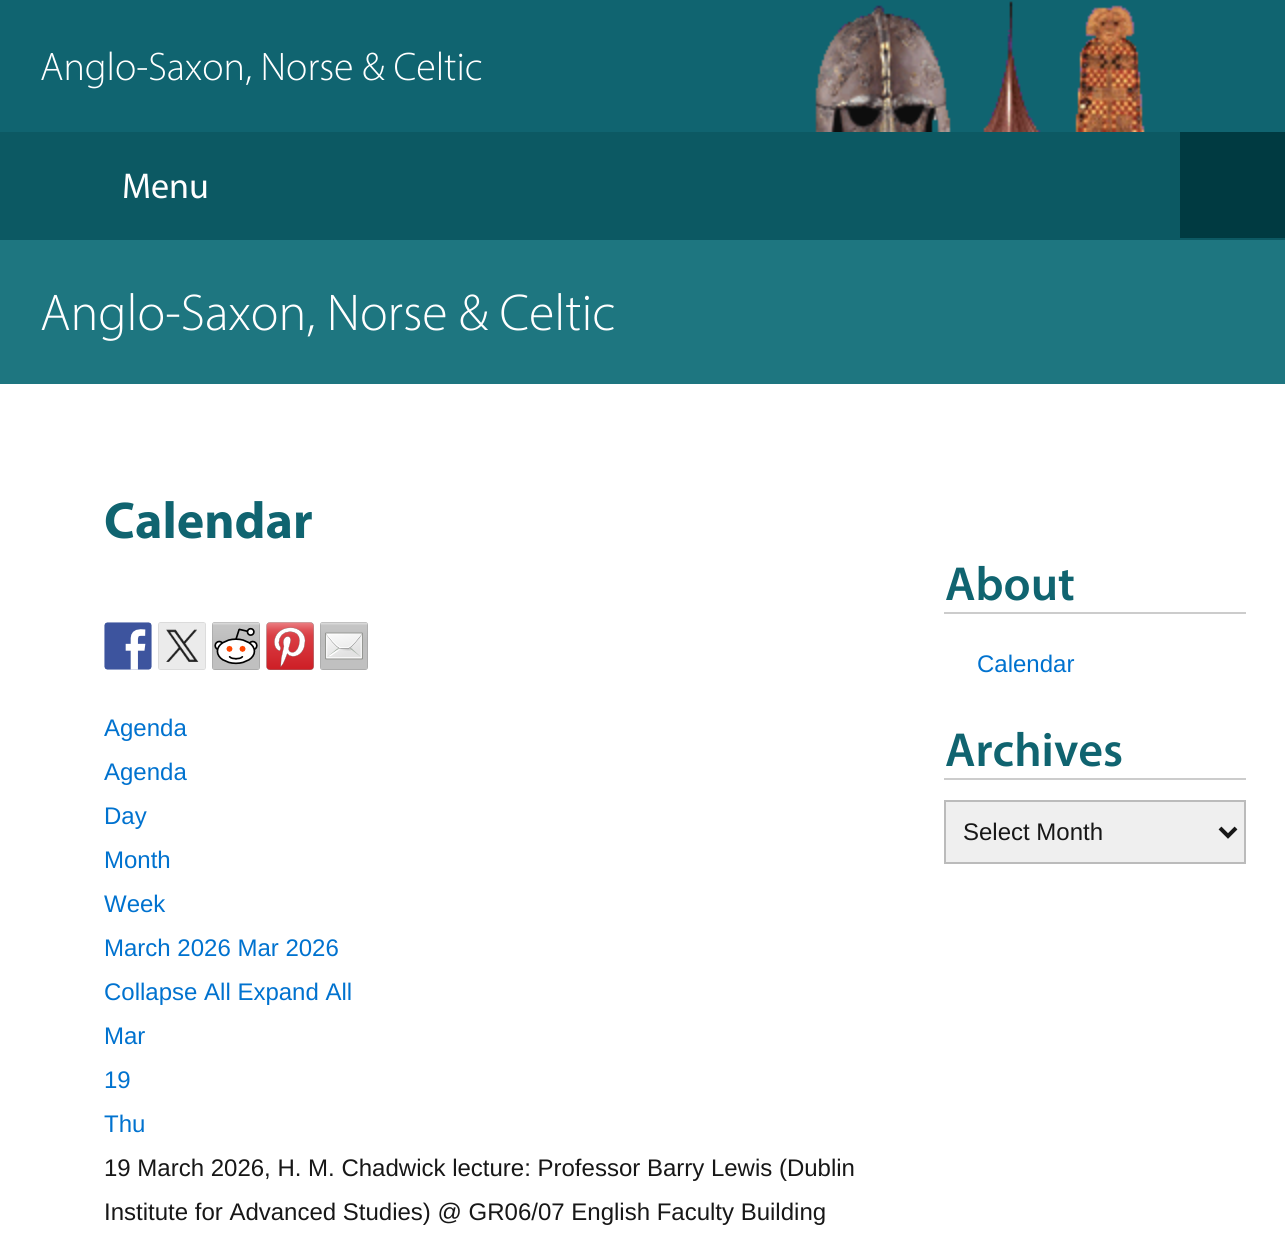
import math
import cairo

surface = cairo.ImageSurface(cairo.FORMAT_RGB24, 1285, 1245)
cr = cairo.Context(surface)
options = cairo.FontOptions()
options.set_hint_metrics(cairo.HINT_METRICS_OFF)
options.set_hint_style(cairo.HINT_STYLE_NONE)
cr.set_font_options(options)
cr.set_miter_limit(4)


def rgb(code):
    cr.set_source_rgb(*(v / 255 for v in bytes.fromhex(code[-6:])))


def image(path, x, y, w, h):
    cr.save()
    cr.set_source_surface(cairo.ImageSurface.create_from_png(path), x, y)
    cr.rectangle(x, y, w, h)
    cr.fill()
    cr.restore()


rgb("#106470")
cr.paint()
image("img/1.png", 815, 1, 330, 131)
for x, y, w, h, color in [
    (0, 132, 1285, 108, "#0c5963"),
    (1180, 132, 105, 106, "#003a41"),
    (0, 240, 1285, 144, "#1e7680"),
    (0, 384, 1285, 861, "#ffffff"),
]:
    rgb(color)
    cr.rectangle(x, y, w, h)
    cr.fill()
image("img/2.png", 104, 622, 48, 48)
image("img/3.png", 158, 622, 48, 48)
image("img/4.png", 212, 622, 48, 48)
image("img/5.png", 266, 622, 48, 48)
image("img/6.png", 320, 622, 48, 48)
rgb("#cccccc")
cr.rectangle(944, 612, 302, 2)
cr.fill()
cr.rectangle(944, 778, 302, 2)
cr.fill()
rgb("#efefef")
cr.rectangle(945, 801, 300, 62)
cr.fill_preserve()
rgb("#bbbbbb")
cr.stroke()
cr.new_path()
cr.move_to(1220, 828)
cr.line_to(1228, 836)
cr.line_to(1236, 828)
rgb("#171717")
cr.set_line_width(4)
cr.stroke()
cr.select_font_face("Myriad Light")
cr.set_font_size(40)
rgb("#ffffff")
cr.move_to(40, 80)
cr.show_text("Anglo-Saxon, Norse & Celtic")
cr.select_font_face("Myriad")
cr.set_font_size(36)
cr.move_to(122, 198)
cr.show_text("Menu")
cr.select_font_face("Myriad Light")
cr.set_font_size(52)
cr.move_to(40, 330)
cr.show_text("Anglo-Saxon, Norse & Celtic")
cr.select_font_face("Myriad", cairo.FONT_SLANT_NORMAL, cairo.FONT_WEIGHT_BOLD)
rgb("#106470")
cr.move_to(104, 538)
cr.show_text("Calendar")
cr.select_font_face("Liberation Sans")
cr.set_font_size(24)
rgb("#0072cf")
for x, y, s in [
    (104, 736, "Agenda"),
    (104, 780, "Agenda"),
    (104, 824, "Day"),
    (104, 868, "Month"),
    (104, 912, "Week"),
    (104, 956, "March 2026 Mar 2026"),
    (104, 1000, "Collapse All Expand All"),
    (104, 1044, "Mar"),
    (104, 1088, "19"),
    (104, 1132, "Thu"),
]:
    cr.move_to(x, y)
    cr.show_text(s)
rgb("#171717")
cr.move_to(104, 1176)
cr.show_text("19 March 2026, H. M. Chadwick lecture: Professor Barry Lewis (Dublin")
cr.move_to(104, 1220)
cr.show_text("Institute for Advanced Studies) @ GR06/07 English Faculty Building")
cr.select_font_face("Myriad SemiBold")
cr.set_font_size(48)
rgb("#106470")
cr.move_to(945, 600)
cr.show_text("About")
cr.select_font_face("Liberation Sans")
cr.set_font_size(24)
rgb("#0072cf")
cr.move_to(977, 672)
cr.show_text("Calendar")
cr.select_font_face("Myriad SemiBold")
cr.set_font_size(48)
rgb("#106470")
cr.move_to(945, 766)
cr.show_text("Archives")
cr.select_font_face("Liberation Sans")
cr.set_font_size(24)
rgb("#171717")
cr.move_to(963, 840)
cr.show_text("Select Month")
surface.write_to_png("page.png")
